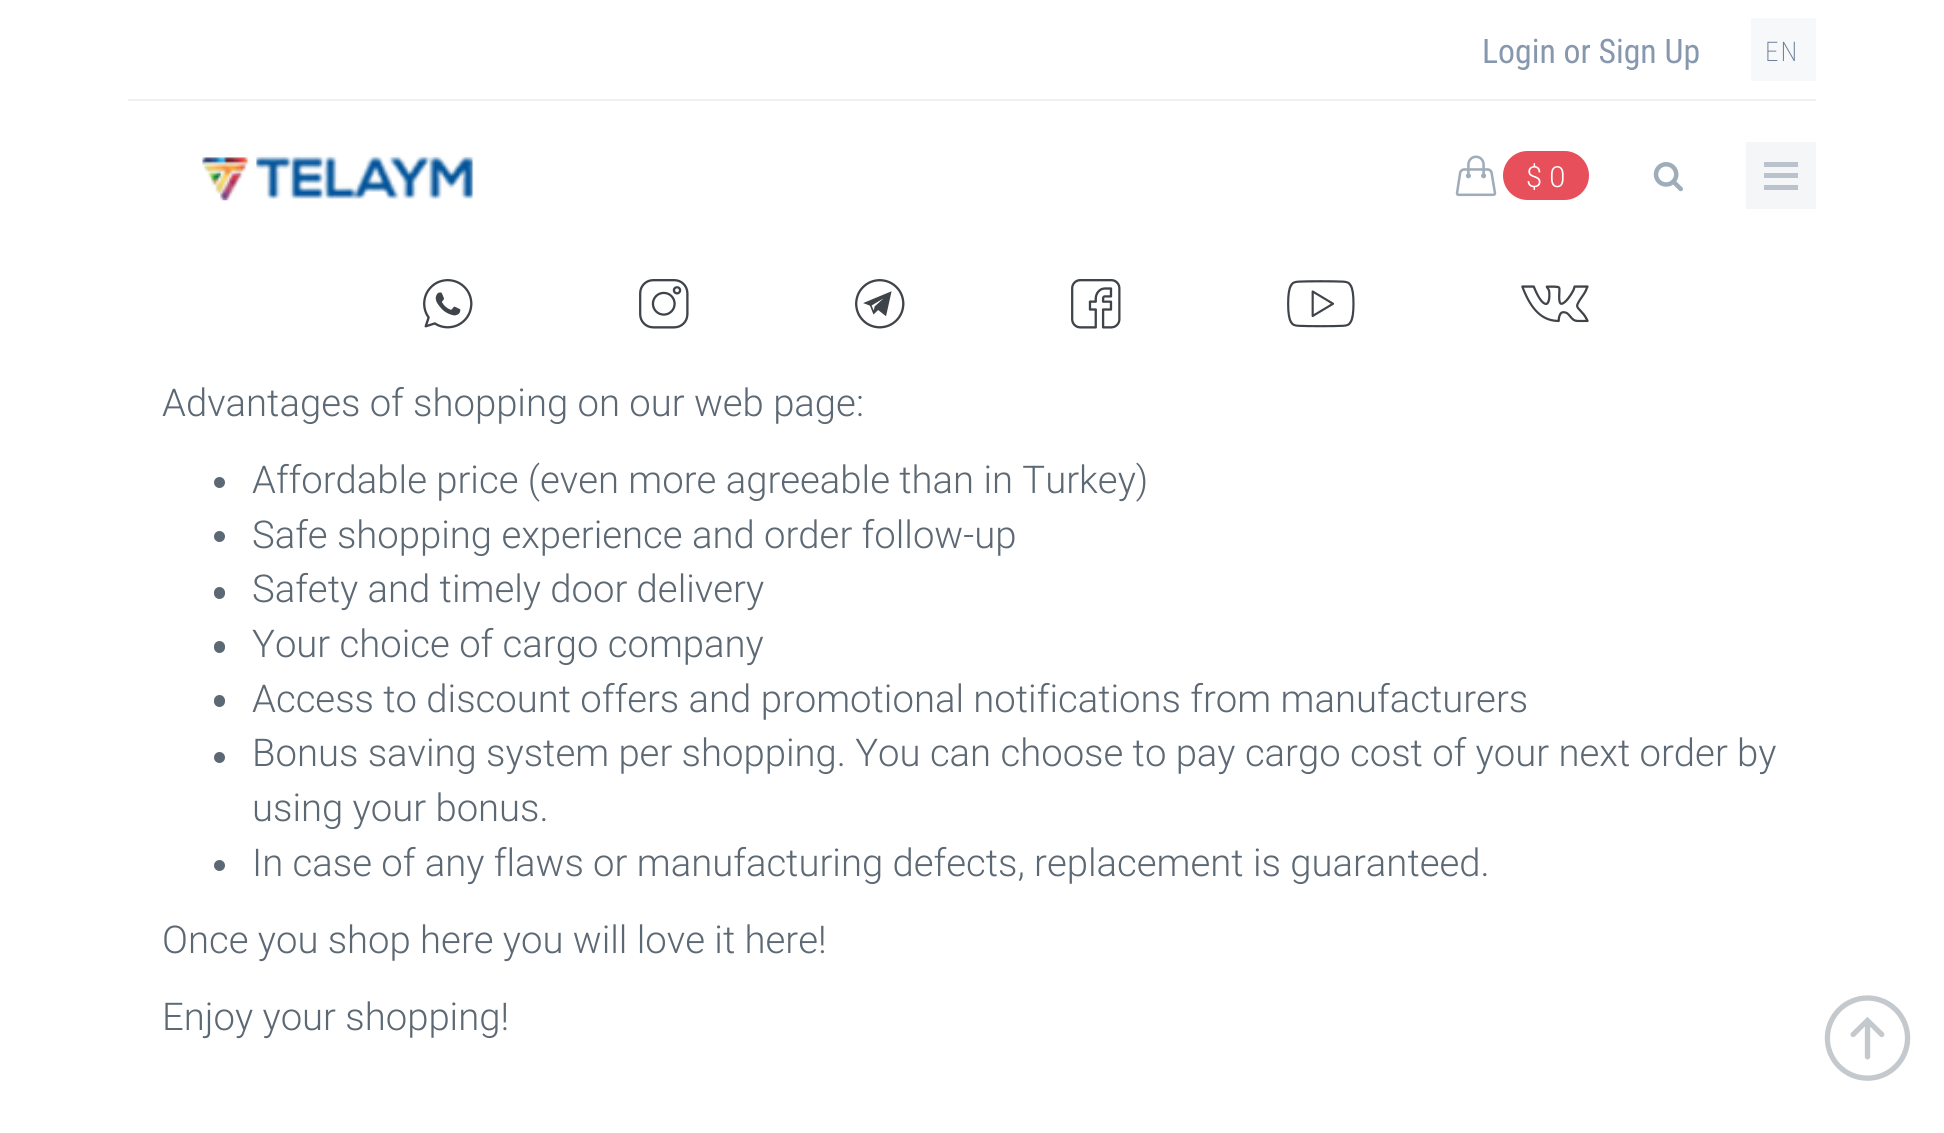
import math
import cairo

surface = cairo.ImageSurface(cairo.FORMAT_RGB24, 1944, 1133)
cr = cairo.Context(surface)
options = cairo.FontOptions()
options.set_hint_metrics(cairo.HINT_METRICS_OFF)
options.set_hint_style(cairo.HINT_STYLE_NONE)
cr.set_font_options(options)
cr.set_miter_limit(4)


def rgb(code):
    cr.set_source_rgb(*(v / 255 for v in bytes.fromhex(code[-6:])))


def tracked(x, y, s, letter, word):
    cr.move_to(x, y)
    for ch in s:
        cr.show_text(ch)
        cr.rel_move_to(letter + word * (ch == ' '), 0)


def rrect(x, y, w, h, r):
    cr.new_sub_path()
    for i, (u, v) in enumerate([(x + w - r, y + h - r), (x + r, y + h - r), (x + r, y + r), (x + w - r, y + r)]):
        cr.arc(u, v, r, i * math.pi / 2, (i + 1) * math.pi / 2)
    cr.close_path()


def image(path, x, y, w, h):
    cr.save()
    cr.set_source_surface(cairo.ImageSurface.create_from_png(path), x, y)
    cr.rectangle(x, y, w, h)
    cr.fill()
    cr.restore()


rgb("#ffffff")
cr.paint()
rgb("#edeff3")
cr.rectangle(128, 99, 1688, 2)
cr.fill()
rgb("#f6f8fa")
cr.rectangle(1751, 18, 65, 63)
cr.fill()
image("img/1.png", 202, 155, 272, 46)
image("img/2.png", 1455, 155, 42, 42)
rgb("#e7505a")
rrect(1503, 151, 86, 49, 24.5)
cr.fill()
image("img/3.png", 1653, 162, 30, 30)
for x, y, w, h, color in [
    (1746, 142, 70, 67, "#f5f6f8"),
    (1764, 162, 34, 5, "#bac3cd"),
    (1764, 173, 34, 5, "#bac3cd"),
    (1764, 185, 34, 5, "#bac3cd"),
]:
    rgb(color)
    cr.rectangle(x, y, w, h)
    cr.fill()
image("img/4.png", 423, 279, 50, 50)
image("img/5.png", 639, 279, 50, 50)
image("img/6.png", 855, 279, 50, 50)
image("img/7.png", 1071, 279, 50, 50)
image("img/8.png", 1287, 280, 68, 48)
image("img/9.png", 1521, 285, 68, 38)
rgb("#5c6873")
cr.arc(219.5, 482.5, 5.5, 0, 2 * math.pi)
cr.fill()
cr.arc(219.5, 536.5, 5.5, 0, 2 * math.pi)
cr.fill()
rrect(214, 587, 11, 12, 5.5)
cr.fill()
rrect(214, 641, 11, 12, 5.5)
cr.fill()
rrect(214, 695, 11, 12, 5.5)
cr.fill()
cr.arc(219.5, 757.5, 5.5, 0, 2 * math.pi)
cr.fill()
cr.arc(219.5, 865.5, 5.5, 0, 2 * math.pi)
cr.fill()
image("img/10.png", 1824, 995, 87, 86)
cr.select_font_face("Roboto Condensed")
cr.set_font_size(33.75)
rgb("#8797ae")
cr.move_to(1482, 63)
cr.show_text("Login or Sign Up")
cr.select_font_face("Roboto Condensed ExtraLight")
cr.set_font_size(27)
rgb("#697d99")
tracked(1765, 61, "EN", 2, 0)
cr.select_font_face("Roboto Light")
cr.set_font_size(29)
rgb("#ffffff")
cr.move_to(1526, 187)
cr.show_text("$ 0")
cr.set_font_size(38.25)
rgb("#5c6873")
for x, y, s in [
    (162, 416, "Advantages of shopping on our web page:"),
    (252, 493, "Affordable price (even more agreeable than in Turkey)"),
    (252, 548, "Safe shopping experience and order follow-up"),
    (252, 602, "Safety and timely door delivery"),
    (252, 657, "Your choice of cargo company"),
    (252, 712, "Access to discount offers and promotional notifications from manufacturers"),
    (252, 766, "Bonus saving system per shopping. You can choose to pay cargo cost of your next order by"),
    (252, 821, "using your bonus."),
    (252, 876, "In case of any flaws or manufacturing defects, replacement is guaranteed."),
    (162, 953, "Once you shop here you will love it here!"),
    (162, 1030, "Enjoy your shopping!"),
]:
    cr.move_to(x, y)
    cr.show_text(s)
surface.write_to_png("page.png")
